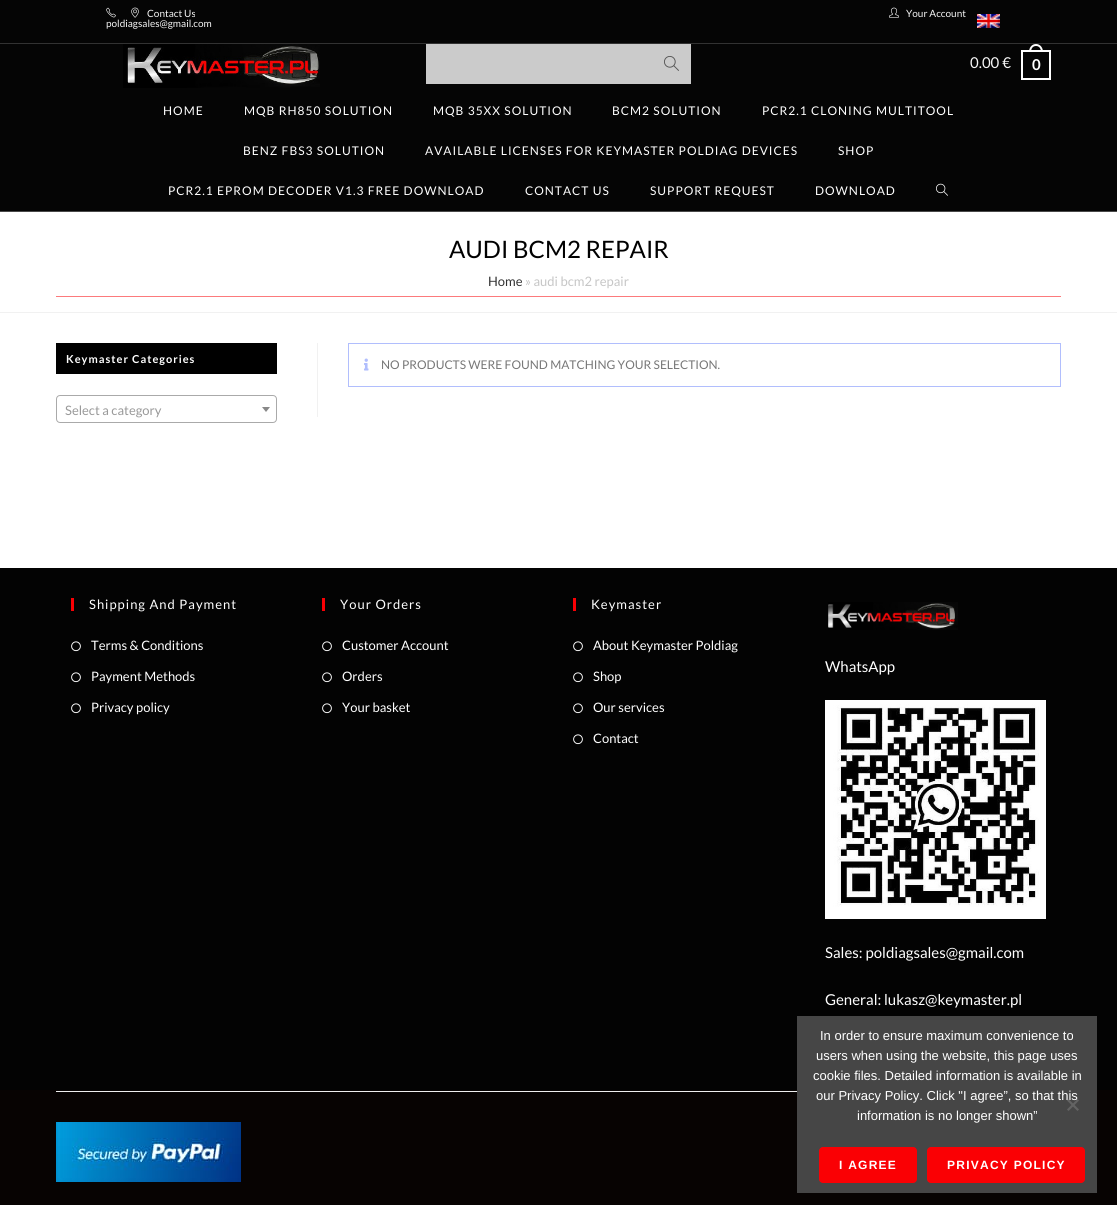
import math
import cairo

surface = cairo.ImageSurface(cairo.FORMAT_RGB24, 1117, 1205)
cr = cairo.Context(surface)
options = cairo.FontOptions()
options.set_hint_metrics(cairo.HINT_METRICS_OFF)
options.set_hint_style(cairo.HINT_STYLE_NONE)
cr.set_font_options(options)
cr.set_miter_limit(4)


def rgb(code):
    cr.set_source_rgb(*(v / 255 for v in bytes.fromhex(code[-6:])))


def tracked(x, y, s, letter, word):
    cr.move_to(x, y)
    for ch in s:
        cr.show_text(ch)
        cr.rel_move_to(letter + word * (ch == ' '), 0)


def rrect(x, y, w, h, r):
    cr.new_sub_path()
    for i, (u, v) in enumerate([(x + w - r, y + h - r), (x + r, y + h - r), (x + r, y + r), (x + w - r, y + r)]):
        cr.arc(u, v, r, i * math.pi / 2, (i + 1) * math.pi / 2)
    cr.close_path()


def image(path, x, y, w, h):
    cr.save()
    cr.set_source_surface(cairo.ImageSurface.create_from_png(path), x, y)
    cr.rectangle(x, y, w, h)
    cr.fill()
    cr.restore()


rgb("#ffffff")
cr.paint()
rgb("#050505")
cr.rectangle(0, 0, 1117, 43)
cr.fill()
rgb("#323232")
cr.rectangle(0, 43, 1117, 1)
cr.fill()
image("img/1.png", 106, 7, 10, 11)
image("img/2.png", 131, 7, 8, 11)
image("img/3.png", 889, 7, 10, 11)
image("img/4.png", 977, 14, 23, 14)
rgb("#494949")
cr.rectangle(0, 211, 1117, 1)
cr.fill()
rgb("#050505")
cr.rectangle(0, 44, 1117, 167)
cr.fill()
image("img/5.png", 123, 44, 197, 44)
rgb("#cbcbcb")
cr.rectangle(426, 44, 265, 40)
cr.fill()
image("img/6.png", 664, 56, 15, 15)
cr.rectangle(1022, 51, 28, 28)
rgb("#ffffff")
cr.stroke()
cr.set_fill_rule(cairo.FILL_RULE_EVEN_ODD)
cr.new_path()
cr.move_to(1036, 44)
cr.curve_to(1040.5, 44, 1043, 48, 1043, 52)
cr.line_to(1029, 52)
cr.curve_to(1029, 48, 1031.5, 44, 1036, 44)
cr.close_path()
cr.move_to(1036, 46)
cr.curve_to(1039.5, 46, 1041, 49, 1041, 52)
cr.line_to(1031, 52)
cr.curve_to(1031, 49, 1032.5, 46, 1036, 46)
cr.close_path()
cr.fill()
image("img/7.png", 936, 183, 12, 13)
for x, y, w, h, color in [
    (0, 312, 1117, 1, "#f1f1f1"),
    (56, 296, 1005, 1, "#fc7a7c"),
    (56, 343, 221, 31, "#000000"),
]:
    rgb(color)
    cr.rectangle(x, y, w, h)
    cr.fill()
rrect(56.5, 395.5, 220, 27, 3.5)
rgb("#aaaaaa")
cr.set_line_width(1)
cr.stroke()
rgb("#888888")
cr.set_fill_rule(cairo.FILL_RULE_WINDING)
cr.new_path()
cr.move_to(262, 407)
cr.line_to(270, 407)
cr.line_to(266, 412)
cr.close_path()
cr.fill()
rgb("#f1f1f1")
cr.rectangle(317, 343, 1, 74)
cr.fill()
cr.rectangle(348.5, 343.5, 712, 43)
rgb("#b1befd")
cr.stroke()
image("img/8.png", 364, 358, 5, 13)
rgb("#030303")
cr.rectangle(0, 568, 1117, 522)
cr.fill()
rgb("#fa0004")
cr.rectangle(71, 598, 3, 13)
cr.fill()
image("img/9.png", 71, 641, 10, 11)
image("img/9.png", 71, 672, 10, 11)
image("img/9.png", 71, 703, 10, 11)
cr.rectangle(322, 598, 3, 13)
cr.fill()
image("img/9.png", 322, 641, 10, 11)
image("img/9.png", 322, 672, 10, 11)
image("img/9.png", 322, 703, 10, 11)
cr.rectangle(573, 598, 3, 13)
cr.fill()
image("img/9.png", 573, 641, 10, 11)
image("img/9.png", 573, 672, 10, 11)
image("img/9.png", 573, 703, 10, 11)
image("img/9.png", 573, 734, 10, 11)
image("img/10.png", 828, 602, 130, 28)
image("img/11.png", 825, 700, 221, 219)
rgb("#070302")
cr.rectangle(0, 1090, 1117, 115)
cr.fill()
rgb("#eeeeee")
cr.rectangle(56, 1091, 741, 1)
cr.fill()
image("img/12.png", 56, 1122, 185, 60)
rgb("#464646")
cr.rectangle(797, 1016, 300, 177)
cr.fill()
rgb("#fa0004")
rrect(819, 1147, 98, 36, 4)
cr.fill()
rrect(927, 1147, 158, 36, 4)
cr.fill()
cr.select_font_face("Lato")
cr.set_font_size(10)
rgb("#f7f7f7")
for x, y, s in [
    (147, 17, "Contact Us"),
    (106, 27, "poldiagsales@gmail.com"),
    (906, 17, "Your Account"),
]:
    cr.move_to(x, y)
    cr.show_text(s)
cr.set_font_size(15)
cr.move_to(970, 68)
cr.show_text("0.00 €")
cr.select_font_face("Lato", cairo.FONT_SLANT_NORMAL, cairo.FONT_WEIGHT_BOLD)
rgb("#ffffff")
cr.move_to(1032, 70)
cr.show_text("0")
cr.select_font_face("Lato")
cr.set_font_size(12)
for x, y, s in [
    (163, 115, "HOME"),
    (244, 115, "MQB RH850 SOLUTION"),
    (433, 115, "MQB 35XX SOLUTION"),
    (612, 115, "BCM2 SOLUTION"),
    (762, 115, "PCR2.1 CLONING MULTITOOL"),
    (243, 155, "BENZ FBS3 SOLUTION"),
    (425, 155, "AVAILABLE LICENSES FOR KEYMASTER POLDIAG DEVICES"),
    (838, 155, "SHOP"),
    (168, 195, "PCR2.1 EPROM DECODER V1.3 FREE DOWNLOAD"),
    (525, 195, "CONTACT US"),
    (650, 195, "SUPPORT REQUEST"),
    (815, 195, "DOWNLOAD"),
]:
    tracked(x, y, s, 1, 0)
cr.set_font_size(24)
rgb("#000000")
cr.move_to(449, 258)
cr.show_text("AUDI BCM2 REPAIR")
cr.set_font_size(13)
rgb("#333333")
cr.move_to(488, 286)
cr.show_text("Home")
rgb("#c6c6c6")
cr.move_to(525, 286)
cr.show_text("» audi bcm2 repair")
cr.select_font_face("Lato", cairo.FONT_SLANT_NORMAL, cairo.FONT_WEIGHT_BOLD)
cr.set_font_size(11)
rgb("#ffffff")
tracked(66, 363, "Keymaster Categories", 1, 0)
cr.select_font_face("Lato")
cr.set_font_size(13)
rgb("#999999")
cr.move_to(65, 415)
cr.show_text("Select a category")
cr.set_font_size(12)
rgb("#777777")
cr.move_to(381, 369)
cr.show_text("NO PRODUCTS WERE FOUND MATCHING YOUR SELECTION.")
cr.set_font_size(13)
rgb("#ffffff")
tracked(89, 609, "Shipping And Payment", 1, 0)
for x, y, s in [
    (91, 650, "Terms & Conditions"),
    (91, 681, "Payment Methods"),
    (91, 712, "Privacy policy"),
]:
    cr.move_to(x, y)
    cr.show_text(s)
tracked(340, 609, "Your Orders", 1, 0)
for x, y, s in [
    (342, 650, "Customer Account"),
    (342, 681, "Orders"),
    (342, 712, "Your basket"),
]:
    cr.move_to(x, y)
    cr.show_text(s)
tracked(591, 609, "Keymaster", 1, 0)
for x, y, s in [
    (593, 650, "About Keymaster Poldiag"),
    (593, 681, "Shop"),
    (593, 712, "Our services"),
    (593, 743, "Contact"),
]:
    cr.move_to(x, y)
    cr.show_text(s)
cr.set_font_size(15)
for x, y, s in [
    (825, 672, "WhatsApp"),
    (825, 958, "Sales: poldiagsales@gmail.com"),
    (825, 1005, "General:"),
    (884, 1005, "lukasz@keymaster.pl"),
]:
    cr.move_to(x, y)
    cr.show_text(s)
cr.select_font_face("Liberation Sans")
cr.set_font_size(13)
for x, y, s in [
    (820, 1040, "In order to ensure maximum convenience to"),
    (816, 1060, "users when using the website, this page uses"),
    (813, 1080, "cookie files. Detailed information is available in"),
    (816, 1100, "our Privacy Policy. Click \"I agree”, so that this"),
    (857, 1120, "information is no longer shown”"),
]:
    cr.move_to(x, y)
    cr.show_text(s)
cr.set_source_rgba(0.502, 0.502, 0.502, 0.5)
cr.new_path()
cr.move_to(1077.5, 1099)
cr.line_to(1079, 1100.5)
cr.line_to(1068.5, 1111)
cr.line_to(1067, 1109.5)
cr.close_path()
cr.fill()
rgb("#636363")
cr.new_path()
cr.move_to(1067, 1100.5)
cr.line_to(1068.5, 1099)
cr.line_to(1079, 1109.5)
cr.line_to(1077.5, 1111)
cr.close_path()
cr.fill()
cr.select_font_face("Liberation Sans", cairo.FONT_SLANT_NORMAL, cairo.FONT_WEIGHT_BOLD)
cr.set_font_size(12)
rgb("#ffffff")
tracked(839, 1169, "I AGREE", 1.25, 0)
tracked(947, 1169, "PRIVACY POLICY", 1.25, 0)
surface.write_to_png("page.png")
